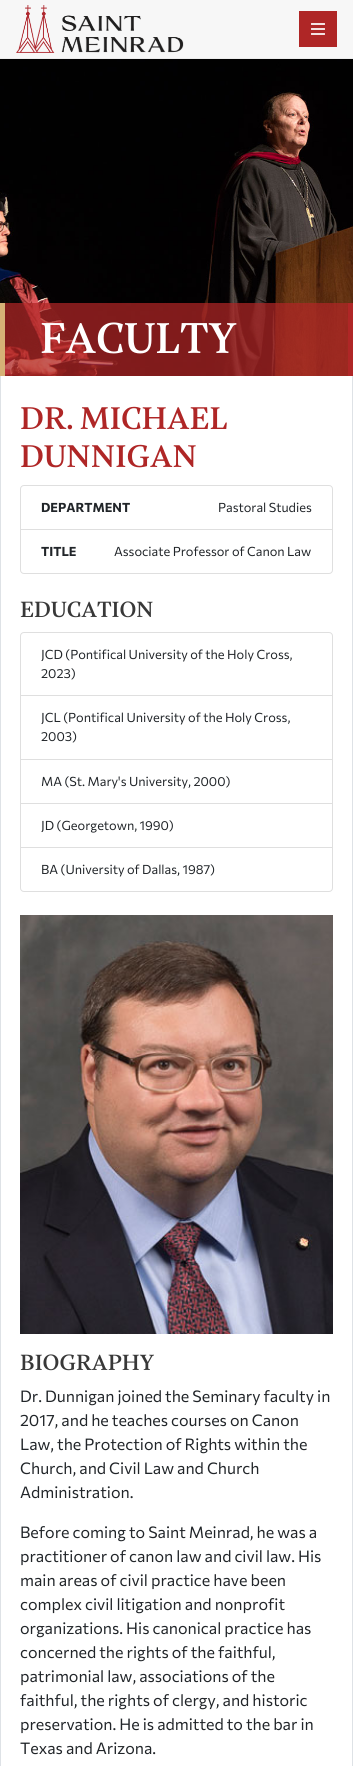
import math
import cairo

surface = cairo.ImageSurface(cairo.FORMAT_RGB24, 353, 1766)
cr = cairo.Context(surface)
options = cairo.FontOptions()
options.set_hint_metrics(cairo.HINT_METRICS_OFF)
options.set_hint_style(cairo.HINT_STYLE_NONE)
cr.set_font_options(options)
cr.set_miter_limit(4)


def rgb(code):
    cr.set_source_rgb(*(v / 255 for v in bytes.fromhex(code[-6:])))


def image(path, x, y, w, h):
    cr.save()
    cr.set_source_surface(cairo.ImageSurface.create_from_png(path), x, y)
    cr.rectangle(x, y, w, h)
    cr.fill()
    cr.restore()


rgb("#ffffff")
cr.paint()
rgb("#f7f7f7")
cr.rectangle(0, 0, 353, 58)
cr.fill()
rgb("#ececec")
cr.rectangle(0, 58, 353, 1)
cr.fill()
image("img/1.png", 16, 5, 168, 48)
rgb("#af2626")
cr.rectangle(299, 11, 38, 36)
cr.fill()
image("img/2.png", 311, 23, 14, 12)
image("img/3.png", 0, 59, 353, 317)
cr.set_source_rgba(0.686, 0.149, 0.149, 0.73)
cr.rectangle(5, 303, 343, 73)
cr.fill()
rgb("#af2626")
cr.rectangle(348, 303, 5, 73)
cr.fill()
rgb("#d6b176")
cr.rectangle(0, 303, 5, 73)
cr.fill()
rgb("#dee2e6")
cr.rectangle(352, 376, 1, 1390)
cr.rectangle(0, 376, 1, 1390)
cr.fill()
cr.new_path()
cr.move_to(24, 485.5)
cr.line_to(329, 485.5)
cr.curve_to(331, 485.5, 332.5, 487, 332.5, 489)
cr.line_to(332.5, 529.5)
cr.line_to(20.5, 529.5)
cr.line_to(20.5, 489)
cr.curve_to(20.5, 487, 22, 485.5, 24, 485.5)
cr.close_path()
rgb("#dfdfdf")
cr.set_line_width(1)
cr.stroke()
rgb("#ffffff")
cr.new_path()
cr.move_to(20.5, 529.5)
cr.line_to(332.5, 529.5)
cr.line_to(332.5, 570)
cr.curve_to(332.5, 572, 331, 573.5, 329, 573.5)
cr.line_to(24, 573.5)
cr.curve_to(22, 573.5, 20.5, 572, 20.5, 570)
cr.close_path()
cr.fill_preserve()
rgb("#dfdfdf")
cr.stroke()
cr.new_path()
cr.move_to(24, 632.5)
cr.line_to(329, 632.5)
cr.curve_to(331, 632.5, 332.5, 634, 332.5, 636)
cr.line_to(332.5, 695.5)
cr.line_to(20.5, 695.5)
cr.line_to(20.5, 636)
cr.curve_to(20.5, 634, 22, 632.5, 24, 632.5)
cr.close_path()
cr.stroke()
cr.rectangle(20.5, 695.5, 312, 64)
cr.stroke()
cr.rectangle(20.5, 759.5, 312, 44)
cr.stroke()
cr.rectangle(20.5, 803.5, 312, 44)
cr.stroke()
rgb("#ffffff")
cr.new_path()
cr.move_to(20.5, 847.5)
cr.line_to(332.5, 847.5)
cr.line_to(332.5, 888)
cr.curve_to(332.5, 890, 331, 891.5, 329, 891.5)
cr.line_to(24, 891.5)
cr.curve_to(22, 891.5, 20.5, 890, 20.5, 888)
cr.close_path()
cr.fill_preserve()
rgb("#dfdfdf")
cr.stroke()
image("img/4.png", 20, 915, 313, 419)
cr.select_font_face("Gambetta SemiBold")
cr.set_font_size(44)
rgb("#ffffff")
cr.move_to(40, 353)
cr.show_text("FACULTY")
cr.set_font_size(32)
rgb("#af2626")
cr.move_to(20, 429)
cr.show_text("DR. MICHAEL")
cr.move_to(20, 467)
cr.show_text("DUNNIGAN")
cr.select_font_face("Commissioner", cairo.FONT_SLANT_NORMAL, cairo.FONT_WEIGHT_BOLD)
cr.set_font_size(12.75)
rgb("#212529")
cr.move_to(41, 512)
cr.show_text("DEPARTMENT")
cr.select_font_face("Commissioner")
cr.move_to(218, 512)
cr.show_text("Pastoral Studies")
cr.select_font_face("Commissioner", cairo.FONT_SLANT_NORMAL, cairo.FONT_WEIGHT_BOLD)
cr.move_to(41, 556)
cr.show_text("TITLE")
cr.select_font_face("Commissioner")
cr.move_to(114, 556)
cr.show_text("Associate Professor of Canon Law")
cr.select_font_face("Gambetta SemiBold")
cr.set_font_size(22.5)
rgb("#383838")
cr.move_to(20, 617)
cr.show_text("EDUCATION")
cr.select_font_face("Commissioner")
cr.set_font_size(12.75)
rgb("#212529")
for x, y, s in [
    (41, 659, "JCD (Pontifical University of the Holy Cross,"),
    (41, 678, "2023)"),
    (41, 722, "JCL (Pontifical University of the Holy Cross,"),
    (41, 741, "2003)"),
    (41, 786, "MA (St. Mary's University, 2000)"),
    (41, 830, "JD (Georgetown, 1990)"),
    (41, 874, "BA (University of Dallas, 1987)"),
]:
    cr.move_to(x, y)
    cr.show_text(s)
cr.select_font_face("Gambetta SemiBold")
cr.set_font_size(22.5)
rgb("#383838")
cr.move_to(20, 1370)
cr.show_text("BIOGRAPHY")
cr.select_font_face("Commissioner")
cr.set_font_size(16)
rgb("#212529")
for x, y, s in [
    (20, 1402, "Dr. Dunnigan joined the Seminary faculty in"),
    (20, 1426, "2017, and he teaches courses on Canon"),
    (20, 1450, "Law, the Protection of Rights within the"),
    (20, 1474, "Church, and Civil Law and Church"),
    (20, 1498, "Administration."),
    (20, 1538, "Before coming to Saint Meinrad, he was a"),
    (20, 1562, "practitioner of canon law and civil law. His"),
    (20, 1586, "main areas of civil practice have been"),
    (20, 1610, "complex civil litigation and nonprofit"),
    (20, 1634, "organizations. His canonical practice has"),
    (20, 1658, "concerned the rights of the faithful,"),
    (20, 1682, "patrimonial law, associations of the"),
    (20, 1706, "faithful, the rights of clergy, and historic"),
    (20, 1730, "preservation. He is admitted to the bar in"),
    (20, 1754, "Texas and Arizona."),
]:
    cr.move_to(x, y)
    cr.show_text(s)
surface.write_to_png("page.png")
